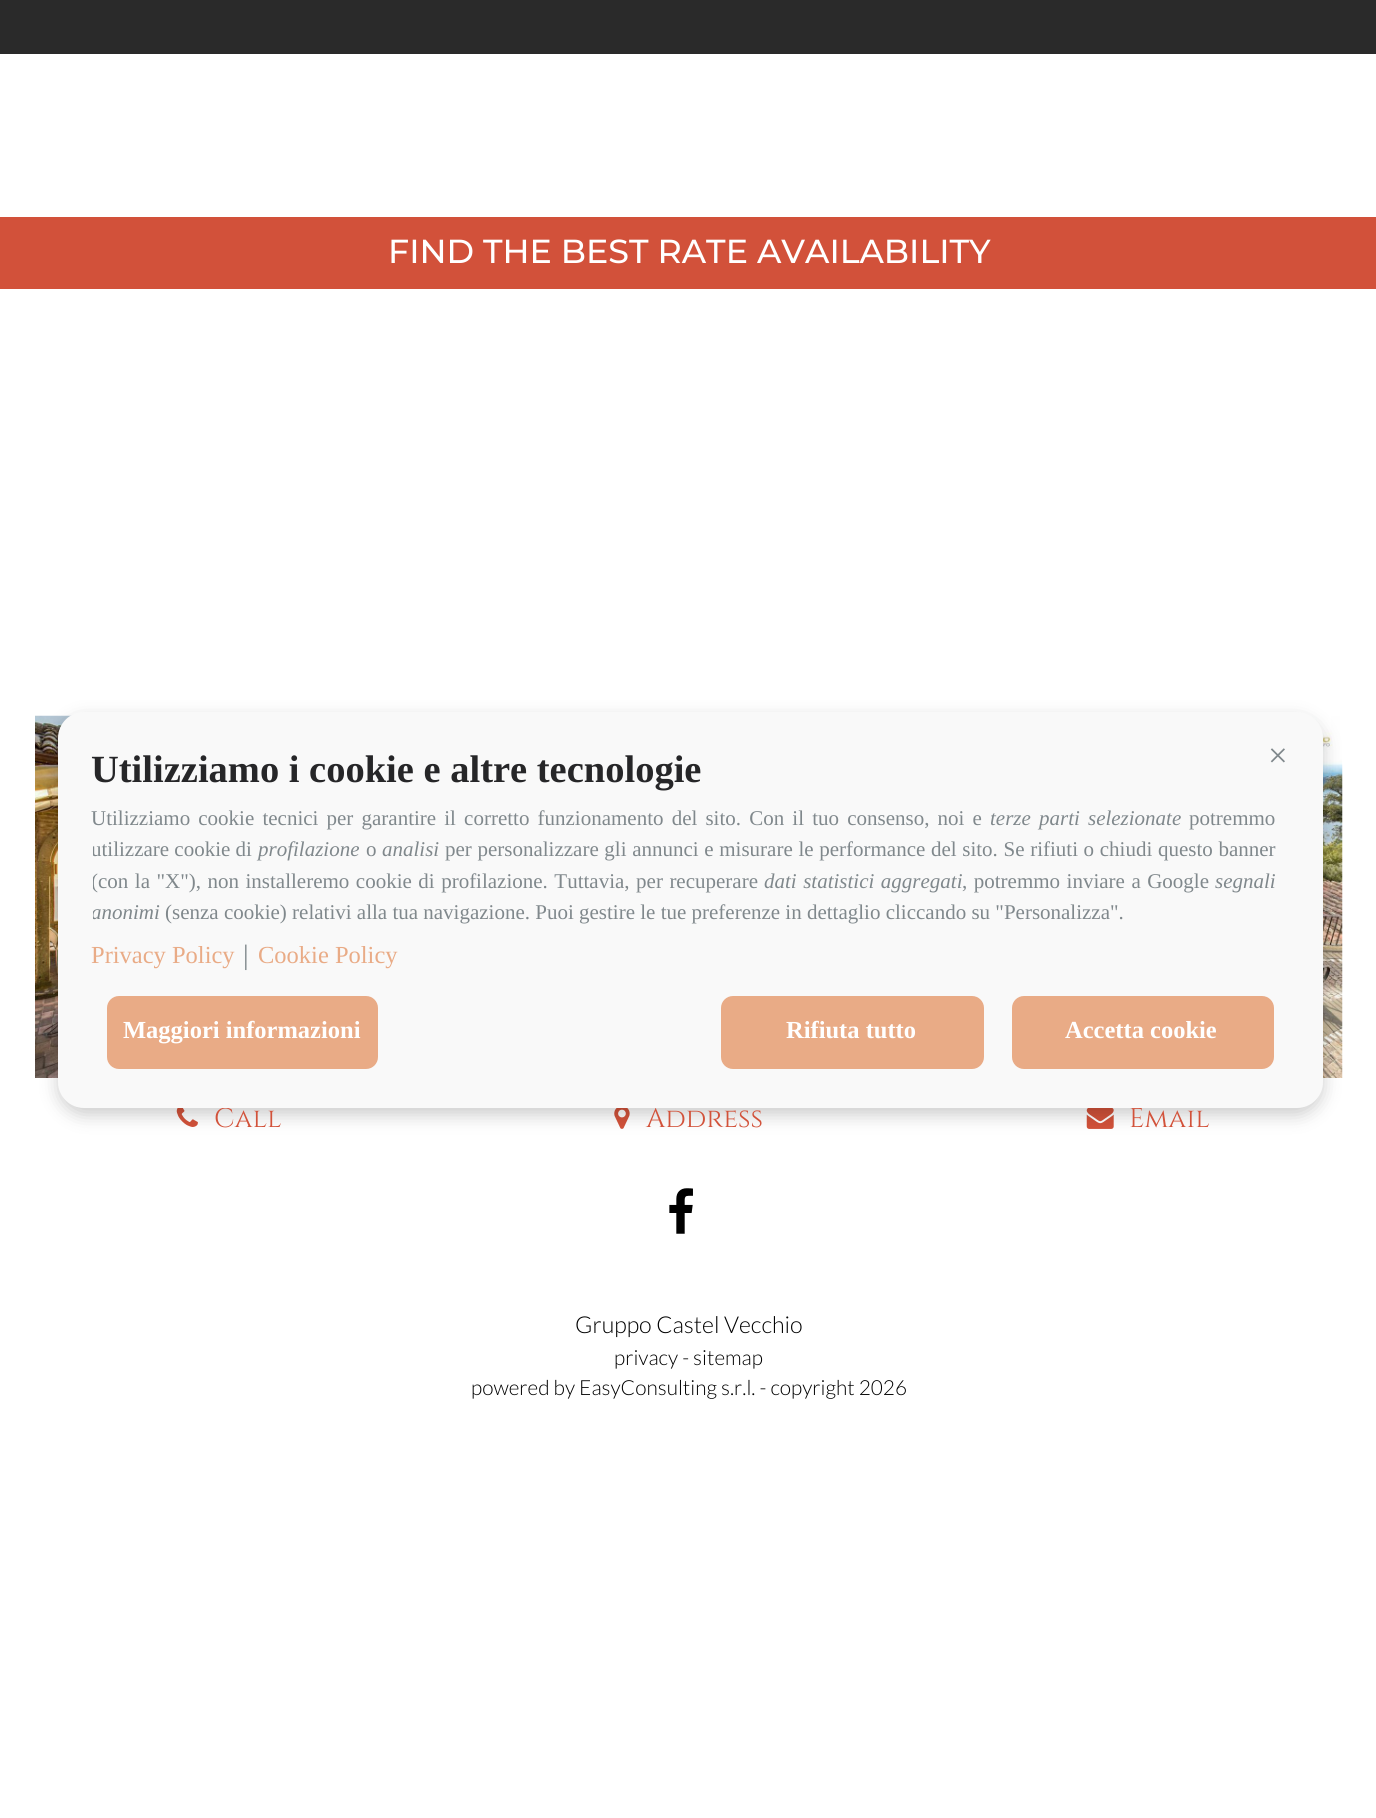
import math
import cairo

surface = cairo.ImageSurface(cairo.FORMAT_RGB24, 1376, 1818)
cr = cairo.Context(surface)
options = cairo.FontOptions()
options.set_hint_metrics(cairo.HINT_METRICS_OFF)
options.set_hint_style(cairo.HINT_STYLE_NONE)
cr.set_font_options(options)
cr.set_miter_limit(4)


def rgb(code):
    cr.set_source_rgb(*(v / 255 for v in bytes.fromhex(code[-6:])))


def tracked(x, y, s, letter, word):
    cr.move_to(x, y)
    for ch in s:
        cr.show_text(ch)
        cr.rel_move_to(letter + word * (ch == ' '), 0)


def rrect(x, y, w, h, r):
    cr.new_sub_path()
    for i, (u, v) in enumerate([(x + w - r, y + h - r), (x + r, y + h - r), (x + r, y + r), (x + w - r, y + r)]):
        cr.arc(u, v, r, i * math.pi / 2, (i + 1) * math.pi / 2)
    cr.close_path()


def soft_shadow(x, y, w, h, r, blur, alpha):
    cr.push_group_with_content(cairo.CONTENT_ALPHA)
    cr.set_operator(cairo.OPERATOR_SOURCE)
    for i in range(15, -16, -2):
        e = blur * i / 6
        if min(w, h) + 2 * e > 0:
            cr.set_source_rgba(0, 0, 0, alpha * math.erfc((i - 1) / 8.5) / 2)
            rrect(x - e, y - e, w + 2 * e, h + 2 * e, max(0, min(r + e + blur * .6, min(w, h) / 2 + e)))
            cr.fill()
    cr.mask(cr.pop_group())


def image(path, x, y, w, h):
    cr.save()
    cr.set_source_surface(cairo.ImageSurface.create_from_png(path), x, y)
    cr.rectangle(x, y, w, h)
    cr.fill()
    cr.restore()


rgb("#ffffff")
cr.paint()
rgb("#2a2a2a")
cr.rectangle(0, 0, 1376, 54)
cr.fill()
rgb("#d2513a")
cr.rectangle(0, 217, 1376, 72)
cr.fill()
image("img/1.png", 35, 715, 37, 363)
image("img/2.png", 1309, 715, 34, 363)
image("img/3.png", 176, 1108, 22, 19)
image("img/4.png", 614, 1108, 16, 21)
image("img/5.png", 1086, 1108, 28, 21)
rgb("#000000")
soft_shadow(58, 719, 1265, 396, 26, 9, 0.2)
image("img/6.png", 669, 1188, 24, 46)
cr.select_font_face("Montserrat Medium")
cr.set_font_size(33.3)
rgb("#ffffff")
cr.move_to(388, 263)
cr.show_text("FIND THE BEST RATE AVAILABILITY")
cr.select_font_face("Cinzel")
cr.set_font_size(27)
rgb("#d2523a")
for x, y, s in [
    (214, 1127, "Call"),
    (646, 1127, "Address"),
    (1129, 1127, "Email"),
]:
    cr.move_to(x, y)
    cr.show_text(s)
rgb("#f9f9f9")
rrect(58, 712, 1265, 396, 26)
cr.fill()
rgb("#e9ab86")
rrect(107, 996, 271, 73, 12)
cr.fill()
cr.select_font_face("Liberation Serif", cairo.FONT_SLANT_NORMAL, cairo.FONT_WEIGHT_BOLD)
cr.set_font_size(24.5)
rgb("#ffffff")
cr.move_to(123, 1038)
cr.show_text("Maggiori informazioni")
rgb("#e9ab86")
rrect(721, 996, 263, 73, 12)
cr.fill()
rgb("#ffffff")
cr.move_to(786, 1038)
cr.show_text("Rifiuta tutto")
rgb("#e9ab86")
rrect(1012, 996, 262, 73, 12)
cr.fill()
rgb("#ffffff")
cr.move_to(1065, 1038)
cr.show_text("Accetta cookie")
cr.select_font_face("Liberation Serif")
cr.set_font_size(35)
rgb("#80888c")
cr.move_to(1268, 767)
cr.show_text("×")
cr.set_font_size(21)
cr.move_to(165, 919)
cr.show_text("(senza cookie) relativi alla tua navigazione. Puoi gestire le tue preferenze in dettaglio cliccando su \"Personalizza\".")
cr.save()
cr.rectangle(93, 803, 1195, 126)
cr.clip()
cr.select_font_face("Liberation Serif", cairo.FONT_SLANT_ITALIC)
cr.move_to(91, 919)
cr.show_text("anonimi")
cr.restore()
cr.select_font_face("Liberation Serif", cairo.FONT_SLANT_ITALIC)
cr.move_to(1215, 888)
cr.show_text("segnali")
cr.select_font_face("Liberation Serif")
tracked(962, 888, ", potremmo inviare a Google", 0, 1.25)
cr.select_font_face("Liberation Serif", cairo.FONT_SLANT_ITALIC)
tracked(764, 888, "dati statistici aggregati", 0, 1.25)
cr.save()
cr.rectangle(93, 803, 1195, 126)
cr.clip()
cr.select_font_face("Liberation Serif")
tracked(91, 888, "(con la \"X\"), non installeremo cookie di profilazione. Tuttavia, per recuperare", 0, 1.25)
cr.restore()
cr.select_font_face("Liberation Serif")
tracked(445, 856, "per personalizzare gli annunci e misurare le performance del sito. Se rifiuti o chiudi questo banner", 0, 0.4)
cr.select_font_face("Liberation Serif", cairo.FONT_SLANT_ITALIC)
cr.move_to(382, 856)
cr.show_text("analisi")
cr.select_font_face("Liberation Serif")
cr.move_to(366, 856)
cr.show_text("o")
cr.select_font_face("Liberation Serif", cairo.FONT_SLANT_ITALIC)
cr.move_to(258, 856)
cr.show_text("profilazione")
cr.save()
cr.rectangle(93, 803, 1195, 126)
cr.clip()
cr.select_font_face("Liberation Serif")
cr.move_to(91, 856)
cr.show_text("utilizzare cookie di")
cr.restore()
cr.select_font_face("Liberation Serif")
cr.move_to(1189, 825)
cr.show_text("potremmo")
cr.select_font_face("Liberation Serif", cairo.FONT_SLANT_ITALIC)
tracked(990, 825, "terze parti selezionate", 0, 2.9)
cr.select_font_face("Liberation Serif")
tracked(91, 825, "Utilizziamo cookie tecnici per garantire il corretto funzionamento del sito. Con il tuo consenso, noi e", 0, 2.9)
cr.set_font_size(24.5)
rgb("#e9ab86")
cr.move_to(258, 963)
cr.show_text("Cookie Policy")
cr.set_font_size(28)
rgb("#80888c")
cr.move_to(243, 964)
cr.show_text("|")
cr.set_font_size(24.5)
rgb("#e9ab86")
cr.move_to(91, 963)
cr.show_text("Privacy Policy")
cr.select_font_face("Liberation Serif", cairo.FONT_SLANT_NORMAL, cairo.FONT_WEIGHT_BOLD)
cr.set_font_size(38.5)
rgb("#262628")
cr.move_to(91, 782)
cr.show_text("Utilizziamo i cookie e altre tecnologie")
cr.select_font_face("Lato Light")
cr.set_font_size(23.25)
rgb("#000000")
cr.move_to(575, 1333)
cr.show_text("Gruppo Castel Vecchio")
cr.set_font_size(20.8)
cr.move_to(614, 1365)
cr.show_text("privacy - sitemap")
cr.move_to(471, 1395)
cr.show_text("powered by EasyConsulting s.r.l. - copyright 2026")
surface.write_to_png("page.png")
